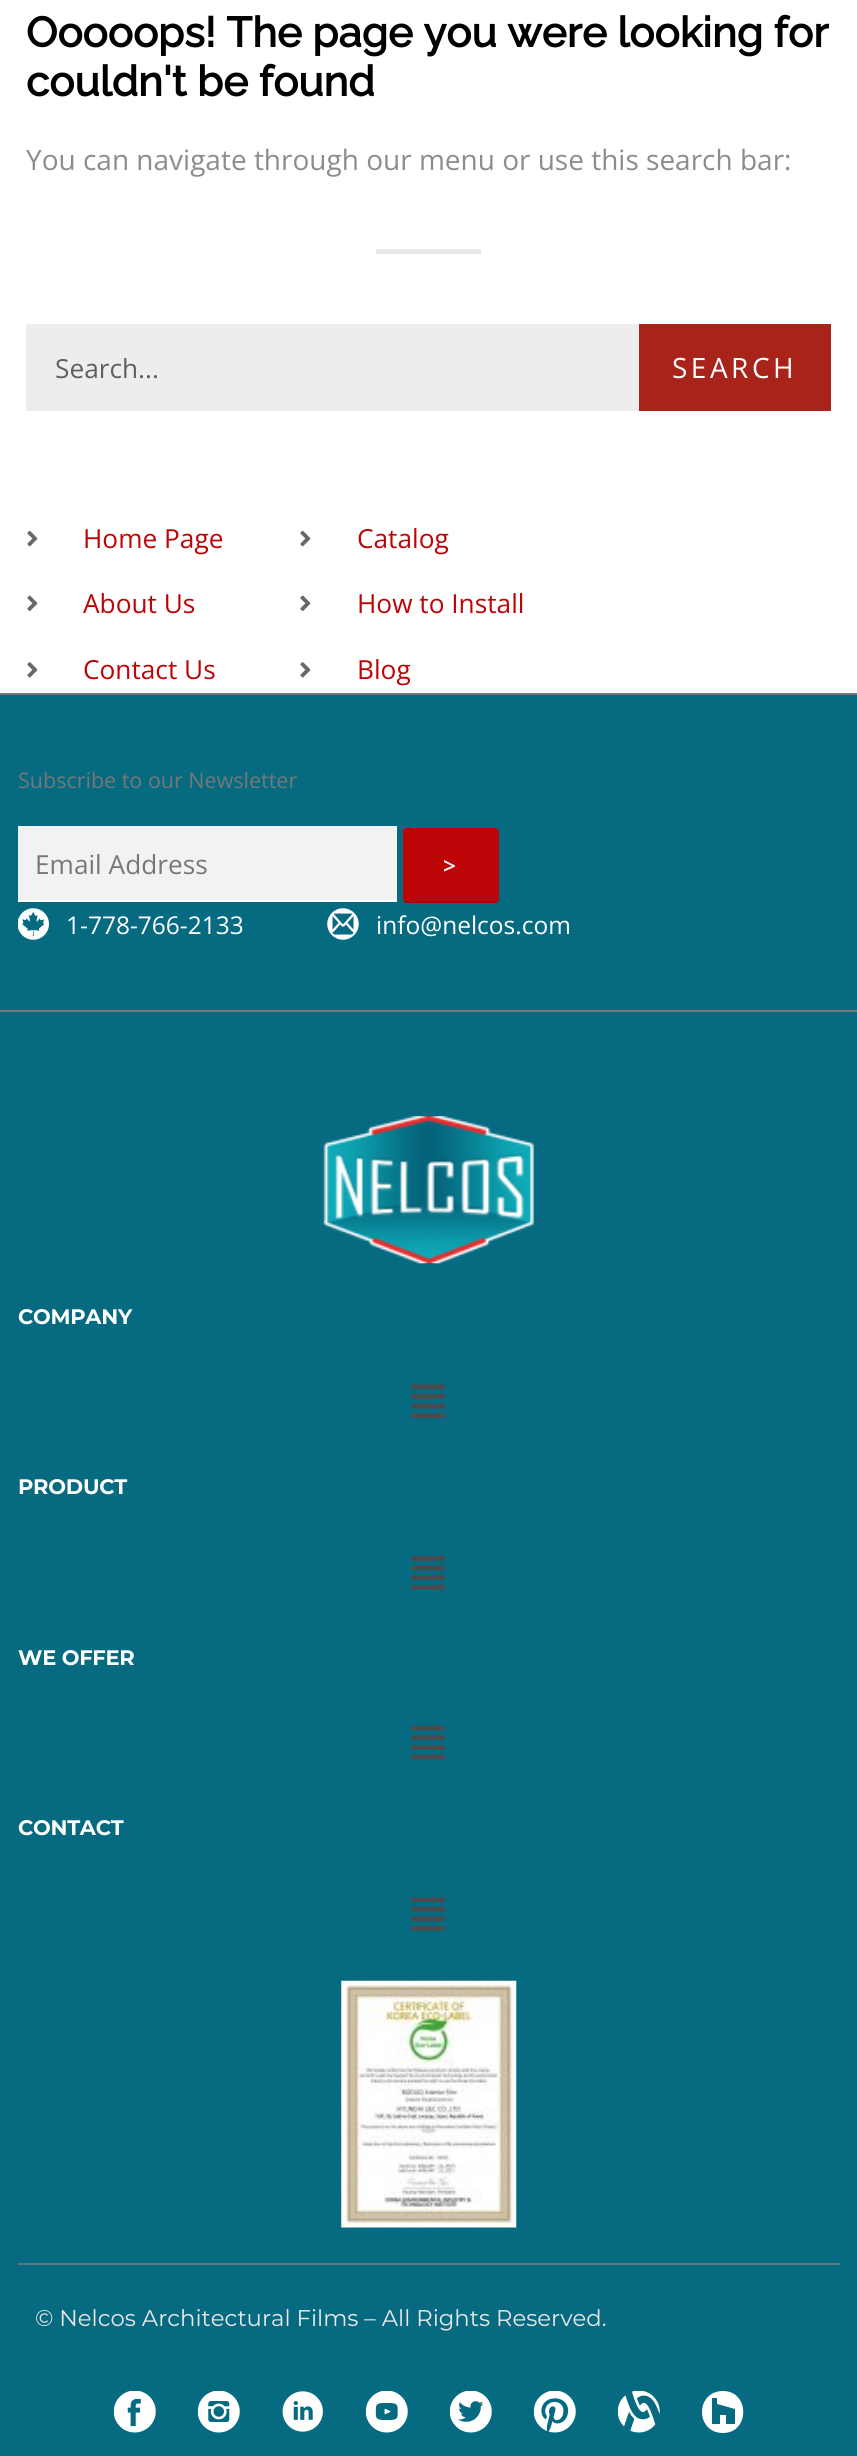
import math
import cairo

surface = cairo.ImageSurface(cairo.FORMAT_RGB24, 857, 2456)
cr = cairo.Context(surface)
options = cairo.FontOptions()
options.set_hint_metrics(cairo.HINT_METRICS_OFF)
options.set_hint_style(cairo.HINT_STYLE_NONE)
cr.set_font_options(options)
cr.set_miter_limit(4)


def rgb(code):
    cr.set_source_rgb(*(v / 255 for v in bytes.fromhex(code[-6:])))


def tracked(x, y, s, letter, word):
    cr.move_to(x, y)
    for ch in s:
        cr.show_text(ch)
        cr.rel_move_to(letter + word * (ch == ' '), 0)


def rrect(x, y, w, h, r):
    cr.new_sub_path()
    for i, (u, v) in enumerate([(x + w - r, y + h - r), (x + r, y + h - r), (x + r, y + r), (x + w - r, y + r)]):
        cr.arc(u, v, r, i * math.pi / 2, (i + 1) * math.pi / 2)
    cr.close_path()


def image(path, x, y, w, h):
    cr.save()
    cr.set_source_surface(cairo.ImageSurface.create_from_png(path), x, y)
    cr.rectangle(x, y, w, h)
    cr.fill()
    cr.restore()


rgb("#ffffff")
cr.paint()
for x, y, w, h, color in [
    (376, 249, 105, 5, "#e8e8e8"),
    (26, 324, 613, 87, "#ededed"),
    (639, 324, 192, 87, "#a8241a"),
]:
    rgb(color)
    cr.rectangle(x, y, w, h)
    cr.fill()
image("img/1.png", 27, 530, 11, 17)
image("img/2.png", 27, 595, 11, 16)
image("img/3.png", 27, 662, 11, 16)
image("img/1.png", 300, 530, 11, 17)
image("img/2.png", 300, 595, 11, 16)
image("img/3.png", 300, 662, 11, 16)
for x, y, w, h, color in [
    (0, 695, 857, 315, "#066a81"),
    (0, 693, 857, 2, "#777777"),
    (0, 1010, 857, 2, "#777777"),
    (18, 826, 379, 74, "#f2f2f2"),
    (18, 900, 379, 2, "#ffffff"),
]:
    rgb(color)
    cr.rectangle(x, y, w, h)
    cr.fill()
rgb("#bd0406")
rrect(403, 828, 96, 75, 4)
cr.fill()
cr.set_source_rgba(0, 0, 0, 0.1)
cr.new_path()
cr.move_to(403, 900)
cr.curve_to(404, 902, 405, 903, 407, 903)
cr.line_to(495, 903)
cr.curve_to(497, 903, 499, 901, 499, 899)
cr.line_to(499, 898)
cr.curve_to(499, 900, 497, 901, 495, 901)
cr.line_to(406, 901)
cr.close_path()
cr.fill()
image("img/4.png", 18, 908, 31, 32)
image("img/5.png", 327, 908, 32, 32)
rgb("#066a81")
cr.rectangle(0, 1012, 857, 1444)
cr.fill()
image("img/6.png", 323, 1116, 211, 148)
image("img/7.png", 411, 1384, 34, 35)
image("img/8.png", 411, 1556, 34, 34)
image("img/9.png", 411, 1725, 34, 35)
image("img/10.png", 411, 1897, 34, 34)
image("img/11.png", 341, 1980, 176, 248)
rgb("#5c7984")
cr.rectangle(18, 2263, 822, 2)
cr.fill()
image("img/12.png", 114, 2391, 42, 42)
image("img/13.png", 198, 2391, 42, 42)
image("img/14.png", 282, 2391, 41, 41)
image("img/15.png", 366, 2391, 42, 42)
image("img/16.png", 450, 2391, 42, 42)
image("img/17.png", 534, 2391, 42, 42)
image("img/18.png", 618, 2391, 42, 42)
rgb("#ffffff")
cr.set_fill_rule(cairo.FILL_RULE_EVEN_ODD)
cr.new_path()
cr.move_to(723, 2433)
cr.curve_to(750, 2433, 750, 2391, 723, 2391)
cr.curve_to(695, 2391, 695, 2433, 723, 2433)
cr.close_path()
cr.move_to(712, 2424)
cr.line_to(712, 2398)
cr.line_to(717, 2398)
cr.line_to(717, 2404)
cr.line_to(735, 2409)
cr.line_to(735, 2424)
cr.line_to(726, 2424)
cr.line_to(726, 2415)
cr.line_to(720, 2415)
cr.line_to(720, 2424)
cr.close_path()
cr.fill()
cr.select_font_face("Raleway", cairo.FONT_SLANT_NORMAL, cairo.FONT_WEIGHT_BOLD)
cr.set_font_size(42)
rgb("#000000")
cr.move_to(26, 47)
cr.show_text("Ooooops! The page you were looking for")
cr.move_to(26, 96)
cr.show_text("couldn't be found")
cr.select_font_face("Open Sans")
cr.set_font_size(28)
rgb("#8c8c8c")
cr.move_to(26, 170)
cr.show_text("You can navigate through our menu or use this search bar:")
cr.set_font_size(26.25)
rgb("#5f5f5f")
cr.move_to(55, 378)
cr.show_text("Search...")
cr.set_font_size(28)
rgb("#ffffff")
tracked(672, 378, "SEARCH", 3.5, 0)
cr.set_font_size(26.25)
rgb("#bd0406")
for x, y, s in [
    (83, 548, "Home Page"),
    (83, 613, "About Us"),
    (83, 679, "Contact Us"),
    (357, 548, "Catalog"),
    (357, 613, "How to Install"),
    (357, 679, "Blog"),
]:
    cr.move_to(x, y)
    cr.show_text(s)
cr.set_font_size(21.5)
rgb("#777777")
cr.move_to(18, 788)
cr.show_text("Subscribe to our Newsletter")
cr.set_font_size(26.25)
cr.move_to(35, 874)
cr.show_text("Email Address")
cr.select_font_face("Open Sans SemiBold")
cr.set_font_size(22.75)
rgb("#ffffff")
tracked(443, 874, ">", 2, 0)
cr.select_font_face("Open Sans")
cr.set_font_size(24.5)
cr.move_to(66, 934)
cr.show_text("1-778-766-2133")
cr.move_to(376, 934)
cr.show_text("info@nelcos.com")
cr.select_font_face("Montserrat", cairo.FONT_SLANT_NORMAL, cairo.FONT_WEIGHT_BOLD)
cr.set_font_size(21)
for x, y, s in [
    (18, 1324, "COMPANY"),
    (18, 1494, "PRODUCT"),
    (18, 1665, "WE OFFER"),
    (18, 1835, "CONTACT"),
]:
    tracked(x, y, s, -0.25, 0)
cr.select_font_face("Montserrat")
cr.set_font_size(22.75)
rgb("#e9e9e9")
cr.move_to(35, 2326)
cr.show_text("© Nelcos Architectural Films – All Rights Reserved.")
surface.write_to_png("page.png")
